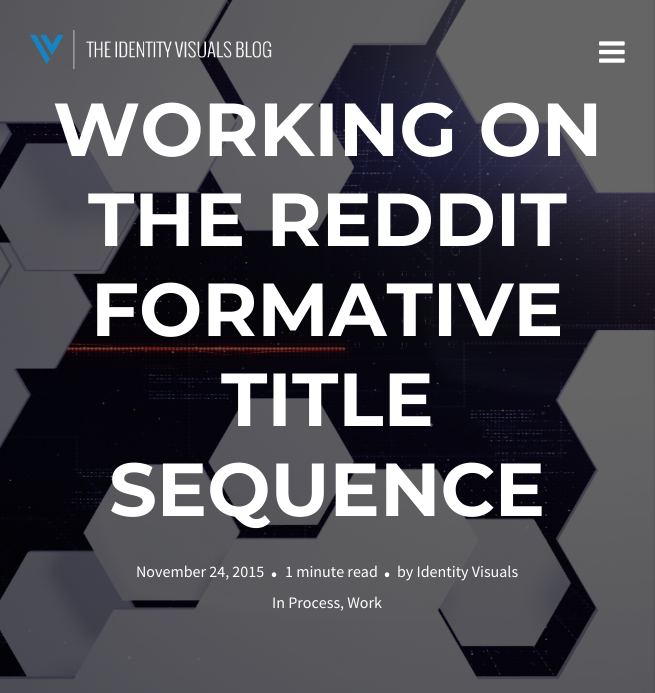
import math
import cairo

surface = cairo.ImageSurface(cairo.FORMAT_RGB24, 655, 693)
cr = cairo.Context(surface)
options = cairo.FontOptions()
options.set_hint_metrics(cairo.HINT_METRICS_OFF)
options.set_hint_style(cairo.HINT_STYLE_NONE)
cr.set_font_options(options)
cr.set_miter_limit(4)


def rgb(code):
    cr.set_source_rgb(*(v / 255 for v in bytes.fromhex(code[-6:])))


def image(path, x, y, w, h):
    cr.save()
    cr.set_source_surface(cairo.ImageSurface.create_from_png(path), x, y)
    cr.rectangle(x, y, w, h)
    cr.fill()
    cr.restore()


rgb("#000000")
cr.paint()
image("img/3.png", 0, 0, 655, 693)
image("img/1.png", 30, 30, 242, 39)
image("img/2.png", 599, 41, 26, 22)
cr.select_font_face("Montserrat", cairo.FONT_SLANT_NORMAL, cairo.FONT_WEIGHT_BOLD)
cr.set_font_size(75)
rgb("#ffffff")
for x, y, s in [
    (53, 156, "WORKING ON"),
    (88, 246, "THE REDDIT"),
    (91, 336, "FORMATIVE"),
    (221, 426, "TITLE"),
    (109, 516, "SEQUENCE"),
]:
    cr.move_to(x, y)
    cr.show_text(s)
cr.select_font_face("Source Sans Pro")
cr.set_font_size(16)
cr.move_to(136, 577)
cr.show_text("November 24, 2015")
cr.set_font_size(20)
cr.move_to(271, 580)
cr.show_text("•")
cr.set_font_size(16)
cr.move_to(285, 577)
cr.show_text("1 minute read")
cr.set_font_size(20)
cr.move_to(384, 580)
cr.show_text("•")
cr.set_font_size(16)
cr.move_to(397, 577)
cr.show_text("by Identity Visuals")
cr.move_to(272, 608)
cr.show_text("In Process, Work")
surface.write_to_png("page.png")
